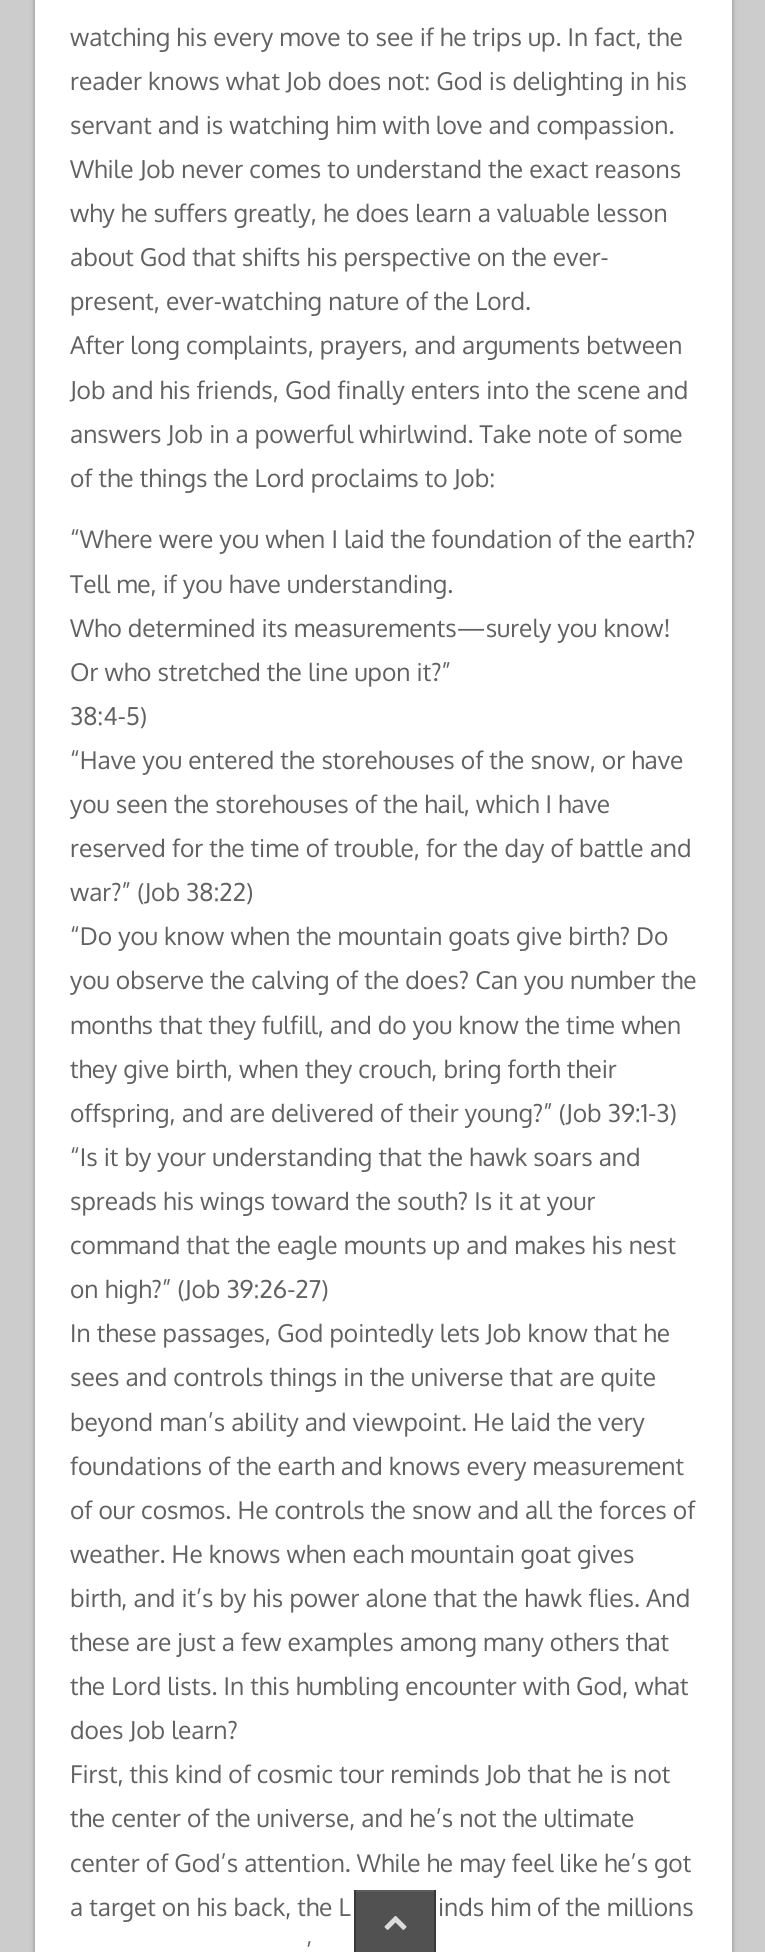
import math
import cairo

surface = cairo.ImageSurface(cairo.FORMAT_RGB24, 765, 1952)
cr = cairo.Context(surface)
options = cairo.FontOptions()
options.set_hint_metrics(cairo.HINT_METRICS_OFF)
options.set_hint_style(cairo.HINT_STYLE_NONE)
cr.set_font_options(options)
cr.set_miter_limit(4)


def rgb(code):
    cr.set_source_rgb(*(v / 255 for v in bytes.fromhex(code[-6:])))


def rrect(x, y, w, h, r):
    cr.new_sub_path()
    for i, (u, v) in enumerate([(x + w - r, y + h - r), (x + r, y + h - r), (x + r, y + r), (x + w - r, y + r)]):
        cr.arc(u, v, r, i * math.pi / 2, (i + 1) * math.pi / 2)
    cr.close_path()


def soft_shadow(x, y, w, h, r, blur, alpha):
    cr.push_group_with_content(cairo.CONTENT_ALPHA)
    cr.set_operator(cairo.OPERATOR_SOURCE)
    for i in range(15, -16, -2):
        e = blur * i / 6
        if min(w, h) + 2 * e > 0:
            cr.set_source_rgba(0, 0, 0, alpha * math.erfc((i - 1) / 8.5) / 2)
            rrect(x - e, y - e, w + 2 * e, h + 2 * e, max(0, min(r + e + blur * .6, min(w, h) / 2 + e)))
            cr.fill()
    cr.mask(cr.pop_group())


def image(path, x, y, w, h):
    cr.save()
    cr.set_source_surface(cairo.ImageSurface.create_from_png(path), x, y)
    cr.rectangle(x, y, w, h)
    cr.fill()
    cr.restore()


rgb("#cccccc")
cr.paint()
rgb("#221919")
soft_shadow(35, -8, 697, 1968, 0, 2.5, 0.4)
rgb("#ffffff")
cr.rectangle(35, 0, 697, 1952)
cr.fill()
cr.set_source_rgba(0.149, 0.149, 0.149, 0.8)
cr.rectangle(354, 1892, 82, 60)
cr.fill()
rgb("#5c5c5c")
cr.rectangle(354, 1890, 82, 2)
cr.fill()
cr.set_source_rgba(0.2, 0.2, 0.2, 0.8)
cr.rectangle(434, 1890, 2, 62)
cr.fill()
cr.rectangle(354, 1890, 2, 62)
cr.fill()
image("img/1.png", 384, 1915, 23, 15)
cr.select_font_face("Oxygen")
cr.set_font_size(24.5)
rgb("#616161")
for x, y, s in [
    (70, 46, "watching his every move to see if he trips up. In fact, the"),
    (70, 90, "reader knows what Job does not: God is delighting in his"),
    (70, 134, "servant and is watching him with love and compassion."),
    (70, 178, "While Job never comes to understand the exact reasons"),
    (70, 222, "why he suffers greatly, he does learn a valuable lesson"),
    (70, 266, "about God that shifts his perspective on the ever-"),
    (70, 310, "present, ever-watching nature of the Lord."),
    (70, 354, "After long complaints, prayers, and arguments between"),
    (70, 399, "Job and his friends, God finally enters into the scene and"),
    (70, 443, "answers Job in a powerful whirlwind. Take note of some"),
    (70, 487, "of the things the Lord proclaims to Job:"),
    (70, 548, "“Where were you when I laid the foundation of the earth?"),
    (70, 593, "Tell me, if you have understanding."),
    (70, 637, "Who determined its measurements—surely you know!"),
    (70, 681, "Or who stretched the line upon it?”"),
    (70, 725, "38:4-5)"),
    (70, 769, "“Have you entered the storehouses of the snow, or have"),
    (70, 813, "you seen the storehouses of the hail, which I have"),
    (70, 857, "reserved for the time of trouble, for the day of battle and"),
    (70, 901, "war?” (Job 38:22)"),
    (70, 945, "“Do you know when the mountain goats give birth? Do"),
    (70, 989, "you observe the calving of the does? Can you number the"),
    (70, 1034, "months that they fulfill, and do you know the time when"),
    (70, 1078, "they give birth, when they crouch, bring forth their"),
    (70, 1122, "offspring, and are delivered of their young?” (Job 39:1-3)"),
    (70, 1166, "“Is it by your understanding that the hawk soars and"),
    (70, 1210, "spreads his wings toward the south? Is it at your"),
    (70, 1254, "command that the eagle mounts up and makes his nest"),
    (70, 1298, "on high?” (Job 39:26-27)"),
    (70, 1342, "In these passages, God pointedly lets Job know that he"),
    (70, 1386, "sees and controls things in the universe that are quite"),
    (70, 1431, "beyond man’s ability and viewpoint. He laid the very"),
    (70, 1475, "foundations of the earth and knows every measurement"),
    (70, 1519, "of our cosmos. He controls the snow and all the forces of"),
    (70, 1563, "weather. He knows when each mountain goat gives"),
    (70, 1607, "birth, and it’s by his power alone that the hawk flies. And"),
    (70, 1651, "these are just a few examples among many others that"),
    (70, 1695, "the Lord lists. In this humbling encounter with God, what"),
    (70, 1739, "does Job learn?"),
    (70, 1783, "First, this kind of cosmic tour reminds Job that he is not"),
    (70, 1827, "the center of the universe, and he’s not the ultimate"),
    (70, 1872, "center of God’s attention. While he may feel like he’s got"),
    (70, 1916, "a target on his back, the L"),
    (438, 1916, "inds him of the millions"),
    (306, 1960, "’"),
]:
    cr.move_to(x, y)
    cr.show_text(s)
surface.write_to_png("page.png")
